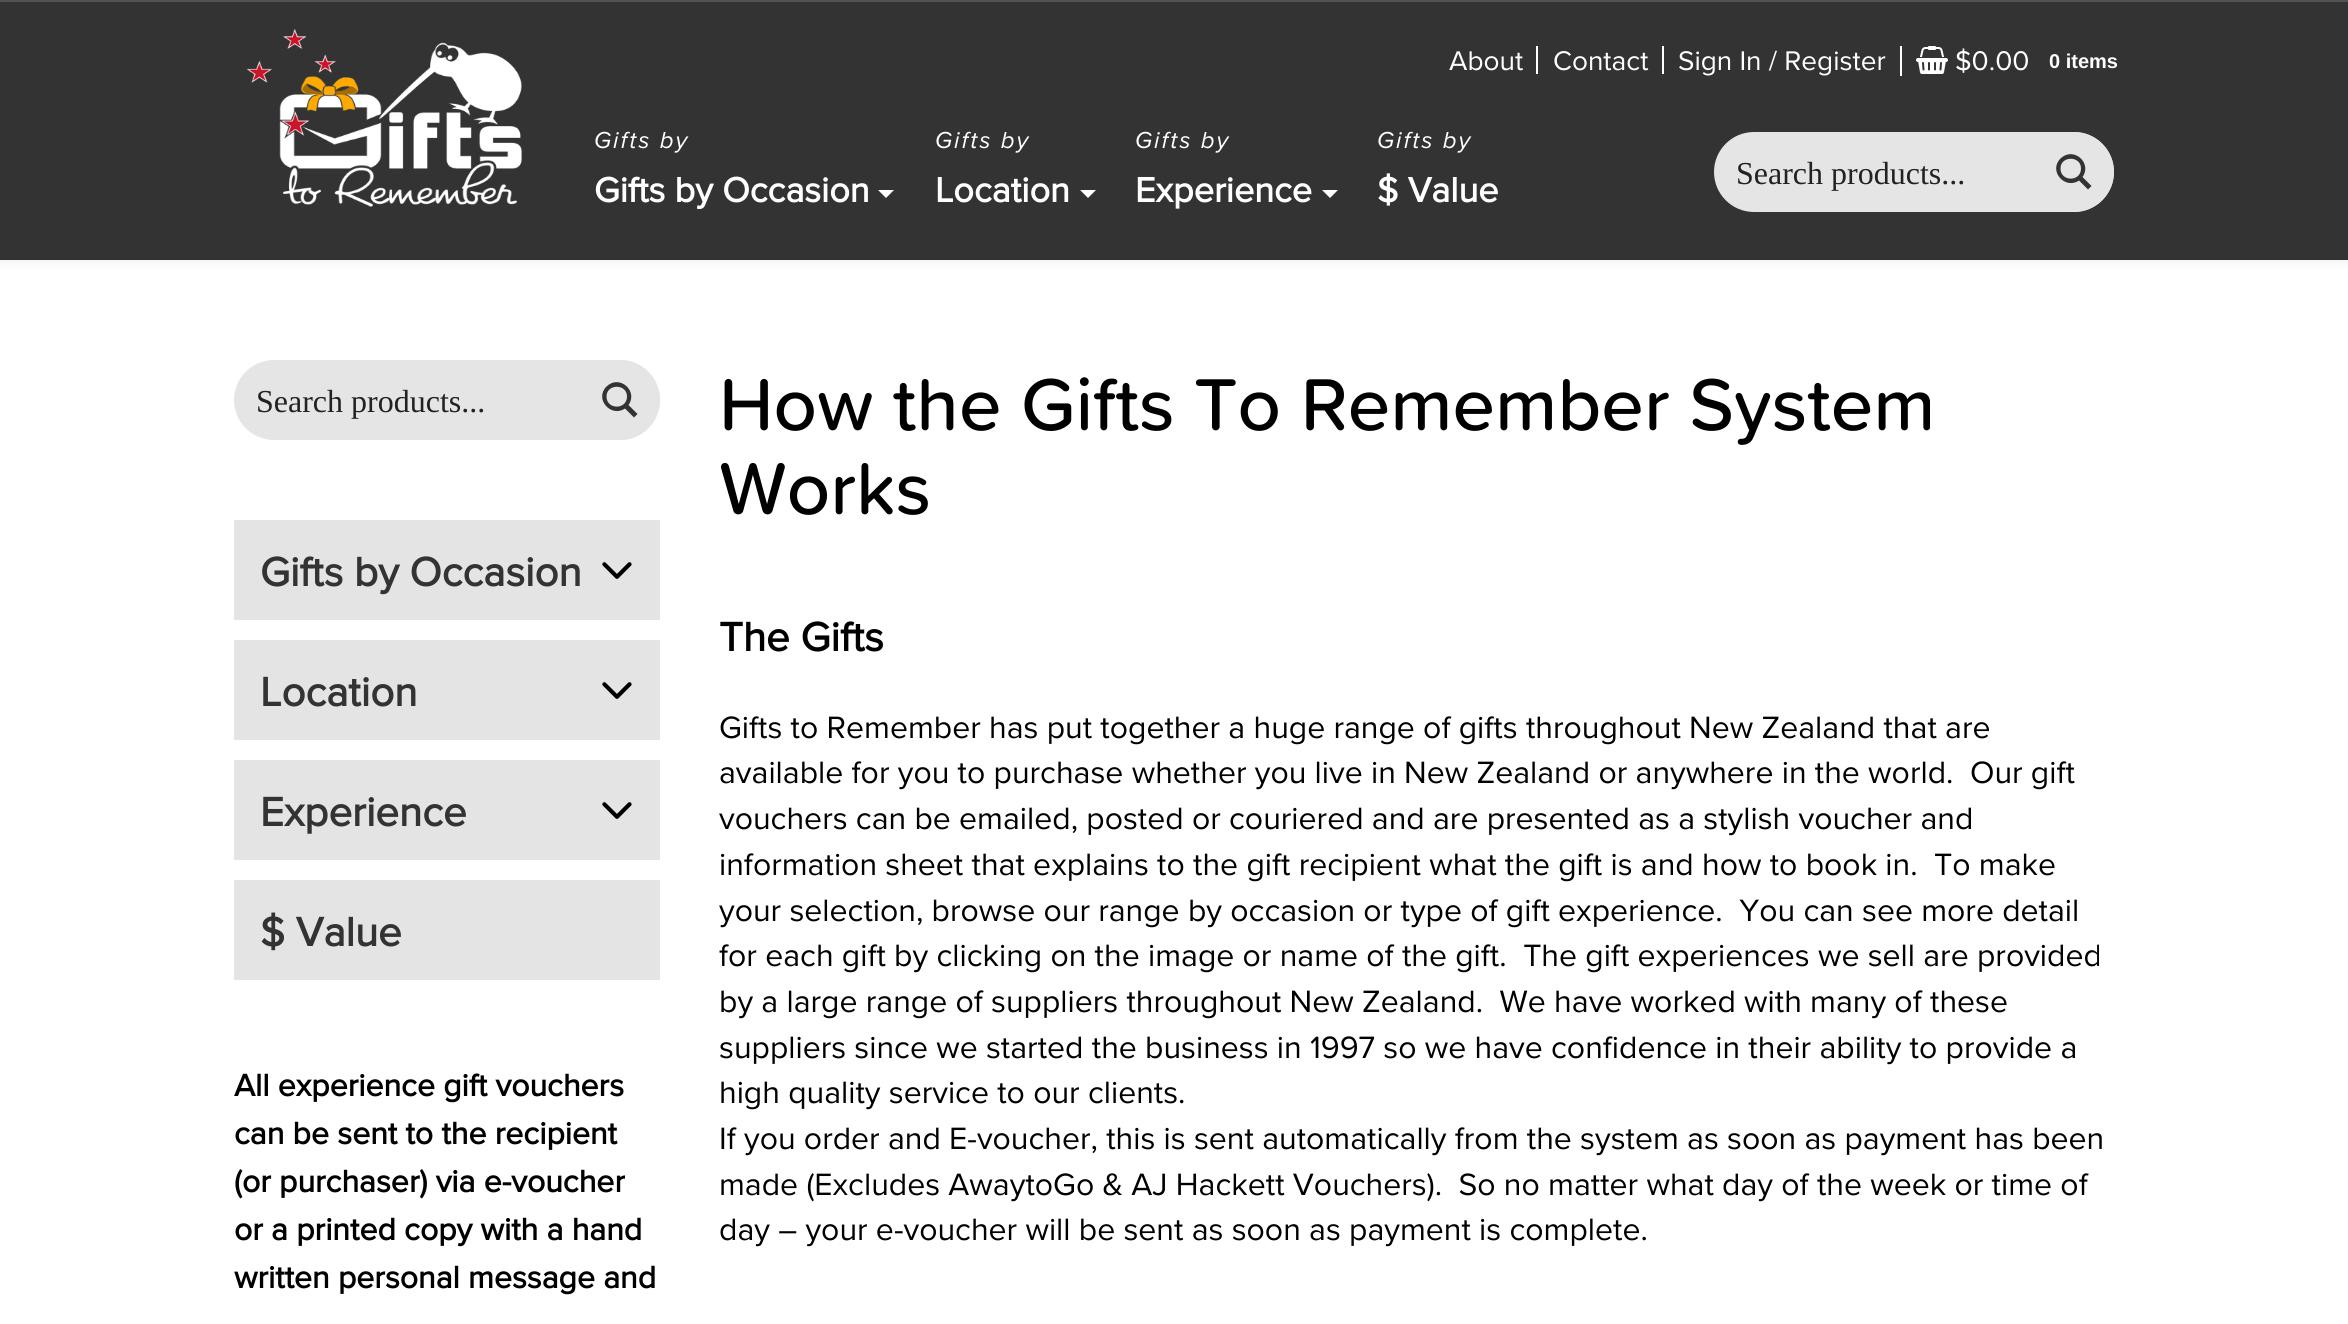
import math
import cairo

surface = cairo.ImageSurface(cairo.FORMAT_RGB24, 2348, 1324)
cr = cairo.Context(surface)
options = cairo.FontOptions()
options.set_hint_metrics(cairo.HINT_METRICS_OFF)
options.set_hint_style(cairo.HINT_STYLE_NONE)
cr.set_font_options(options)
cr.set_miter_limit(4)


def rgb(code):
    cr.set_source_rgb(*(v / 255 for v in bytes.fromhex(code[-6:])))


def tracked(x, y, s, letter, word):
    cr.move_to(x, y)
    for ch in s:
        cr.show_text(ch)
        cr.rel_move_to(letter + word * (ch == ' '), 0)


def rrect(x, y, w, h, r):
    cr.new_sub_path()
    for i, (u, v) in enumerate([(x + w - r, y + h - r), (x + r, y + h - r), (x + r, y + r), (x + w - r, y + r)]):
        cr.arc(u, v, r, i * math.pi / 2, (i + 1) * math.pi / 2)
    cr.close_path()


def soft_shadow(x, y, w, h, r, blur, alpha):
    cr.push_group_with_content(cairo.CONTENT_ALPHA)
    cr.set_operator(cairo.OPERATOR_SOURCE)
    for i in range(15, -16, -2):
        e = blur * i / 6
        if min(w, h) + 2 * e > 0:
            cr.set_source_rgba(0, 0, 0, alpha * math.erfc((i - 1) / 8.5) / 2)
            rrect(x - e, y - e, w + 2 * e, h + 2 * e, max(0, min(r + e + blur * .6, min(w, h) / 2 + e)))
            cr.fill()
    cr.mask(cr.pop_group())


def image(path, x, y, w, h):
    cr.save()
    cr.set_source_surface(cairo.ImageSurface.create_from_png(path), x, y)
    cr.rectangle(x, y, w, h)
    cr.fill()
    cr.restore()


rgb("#ffffff")
cr.paint()
rgb("#000000")
soft_shadow(0, 2, 2348, 260, 0, 5, 0.07)
rgb("#333333")
cr.rectangle(0, 2, 2348, 258)
cr.fill()
rgb("#525252")
cr.rectangle(0, 0, 2348, 2)
cr.fill()
image("img/1.png", 246, 28, 277, 179)
rgb("#ffffff")
cr.new_path()
cr.move_to(878, 190)
cr.line_to(894, 190)
cr.line_to(886, 198)
cr.close_path()
cr.fill()
cr.new_path()
cr.move_to(1080, 190)
cr.line_to(1096, 190)
cr.line_to(1088, 198)
cr.close_path()
cr.fill()
cr.new_path()
cr.move_to(1322, 190)
cr.line_to(1338, 190)
cr.line_to(1330, 198)
cr.close_path()
cr.fill()
for x, y, w, h, color in [
    (1536, 46, 2, 28, "#ffffff"),
    (1662, 46, 2, 28, "#ffffff"),
    (1900, 46, 2, 30, "#ffffff"),
]:
    rgb(color)
    cr.rectangle(x, y, w, h)
    cr.fill()
image("img/2.png", 1916, 46, 32, 28)
rgb("#e5e5e5")
rrect(1714, 132, 400, 80, 40)
cr.fill()
cr.new_path()
cr.move_to(2034, 132)
cr.line_to(2074, 132)
cr.curve_to(2096, 132, 2114, 150, 2114, 172)
cr.curve_to(2114, 194, 2096, 212, 2074, 212)
cr.line_to(2034, 212)
cr.close_path()
cr.fill()
rgb("#333333")
cr.new_path()
cr.move_to(2091.5, 186)
cr.line_to(2082.5, 177)
cr.curve_to(2092.5, 163, 2073.5, 146, 2060.5, 158.5)
cr.curve_to(2048, 171, 2065, 190, 2079, 180.5)
cr.line_to(2088, 189.5)
cr.close_path()
cr.move_to(2060.5, 168.5)
cr.curve_to(2060.5, 155.5, 2081, 155.5, 2081, 168.5)
cr.curve_to(2081, 182, 2060.5, 182, 2060.5, 168.5)
cr.close_path()
cr.fill()
rgb("#e5e5e5")
rrect(234, 360, 426, 80, 40)
cr.fill()
cr.new_path()
cr.move_to(580, 360)
cr.line_to(620, 360)
cr.curve_to(642, 360, 660, 378, 660, 400)
cr.curve_to(660, 422, 642, 440, 620, 440)
cr.line_to(580, 440)
cr.close_path()
cr.fill()
rgb("#333333")
cr.new_path()
cr.move_to(637.5, 414)
cr.line_to(628.5, 405)
cr.curve_to(638.5, 391, 619.5, 374, 606.5, 386.5)
cr.curve_to(594, 399, 611, 418, 625, 408.5)
cr.line_to(634, 417.5)
cr.close_path()
cr.move_to(606.5, 396.5)
cr.curve_to(606.5, 383.5, 627, 383.5, 627, 396.5)
cr.curve_to(627, 410, 606.5, 410, 606.5, 396.5)
cr.close_path()
cr.fill()
rgb("#e4e4e4")
cr.rectangle(234, 520, 426, 100)
cr.fill()
image("img/3.png", 602, 562, 30, 17)
cr.rectangle(234, 640, 426, 100)
cr.fill()
image("img/3.png", 602, 682, 30, 17)
cr.rectangle(234, 760, 426, 100)
cr.fill()
image("img/3.png", 602, 802, 30, 17)
cr.rectangle(234, 880, 426, 100)
cr.fill()
cr.select_font_face("Proxima Nova", cairo.FONT_SLANT_ITALIC)
cr.set_font_size(24)
rgb("#ffffff")
tracked(594, 148, "Gifts by", 2, 0)
cr.select_font_face("Proxima Nova", cairo.FONT_SLANT_NORMAL, cairo.FONT_WEIGHT_BOLD)
cr.set_font_size(36)
cr.move_to(594, 202)
cr.show_text("Gifts by Occasion")
cr.select_font_face("Proxima Nova", cairo.FONT_SLANT_ITALIC)
cr.set_font_size(24)
tracked(935, 148, "Gifts by", 2, 0)
cr.select_font_face("Proxima Nova", cairo.FONT_SLANT_NORMAL, cairo.FONT_WEIGHT_BOLD)
cr.set_font_size(36)
cr.move_to(935, 202)
cr.show_text("Location")
cr.select_font_face("Proxima Nova", cairo.FONT_SLANT_ITALIC)
cr.set_font_size(24)
tracked(1135, 148, "Gifts by", 2, 0)
cr.select_font_face("Proxima Nova", cairo.FONT_SLANT_NORMAL, cairo.FONT_WEIGHT_BOLD)
cr.set_font_size(36)
cr.move_to(1135, 202)
cr.show_text("Experience")
cr.select_font_face("Proxima Nova", cairo.FONT_SLANT_ITALIC)
cr.set_font_size(24)
tracked(1377, 148, "Gifts by", 2, 0)
cr.select_font_face("Proxima Nova", cairo.FONT_SLANT_NORMAL, cairo.FONT_WEIGHT_BOLD)
cr.set_font_size(36)
cr.move_to(1377, 202)
cr.show_text("$ Value")
cr.select_font_face("Proxima Nova")
cr.set_font_size(28)
for x, y, s in [
    (1449, 70, "About"),
    (1553, 70, "Contact"),
    (1678, 70, "Sign In / Register"),
    (1955, 70, "$0.00"),
]:
    cr.move_to(x, y)
    cr.show_text(s)
cr.select_font_face("Liberation Sans", cairo.FONT_SLANT_NORMAL, cairo.FONT_WEIGHT_BOLD)
cr.set_font_size(20)
cr.move_to(2049, 68)
cr.show_text("0 items")
cr.select_font_face("Liberation Serif")
cr.set_font_size(32)
rgb("#222222")
cr.move_to(1736, 184)
cr.show_text("Search products...")
cr.move_to(256, 412)
cr.show_text("Search products...")
cr.select_font_face("Proxima Nova", cairo.FONT_SLANT_NORMAL, cairo.FONT_WEIGHT_BOLD)
cr.set_font_size(42)
rgb("#333333")
for x, y, s in [
    (260, 586, "Gifts by Occasion"),
    (260, 706, "Location"),
    (260, 826, "Experience"),
    (260, 946, "$ Value"),
]:
    cr.move_to(x, y)
    cr.show_text(s)
cr.set_font_size(32)
rgb("#000000")
for x, y, s in [
    (234, 1096, "All experience gift vouchers"),
    (234, 1144, "can be sent to the recipient"),
    (234, 1192, "(or purchaser) via e-voucher"),
    (234, 1240, "or a printed copy with a hand"),
    (234, 1288, "written personal message and"),
]:
    cr.move_to(x, y)
    cr.show_text(s)
cr.select_font_face("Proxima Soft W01 Medium")
cr.set_font_size(76)
cr.move_to(719, 430)
cr.show_text("How the Gifts To Remember System")
cr.move_to(719, 514)
cr.show_text("Works")
cr.select_font_face("Proxima Nova", cairo.FONT_SLANT_NORMAL, cairo.FONT_WEIGHT_BOLD)
cr.set_font_size(42)
cr.move_to(719, 651)
cr.show_text("The Gifts")
cr.select_font_face("Proxima Nova")
cr.set_font_size(32)
for x, y, s in [
    (719, 738, "Gifts to Remember has put together a huge range of gifts throughout New Zealand that are"),
    (719, 783, "available for you to purchase whether you live in New Zealand or anywhere in the world.  Our gift"),
    (719, 829, "vouchers can be emailed, posted or couriered and are presented as a stylish voucher and"),
    (719, 875, "information sheet that explains to the gift recipient what the gift is and how to book in.  To make"),
    (719, 921, "your selection, browse our range by occasion or type of gift experience.  You can see more detail"),
    (719, 966, "for each gift by clicking on the image or name of the gift.  The gift experiences we sell are provided"),
    (719, 1012, "by a large range of suppliers throughout New Zealand.  We have worked with many of these"),
    (719, 1058, "suppliers since we started the business in 1997 so we have confidence in their ability to provide a"),
    (719, 1103, "high quality service to our clients."),
    (719, 1149, "If you order and E-voucher, this is sent automatically from the system as soon as payment has been"),
    (719, 1195, "made (Excludes AwaytoGo & AJ Hackett Vouchers).  So no matter what day of the week or time of"),
    (719, 1240, "day – your e-voucher will be sent as soon as payment is complete."),
]:
    cr.move_to(x, y)
    cr.show_text(s)
surface.write_to_png("page.png")
